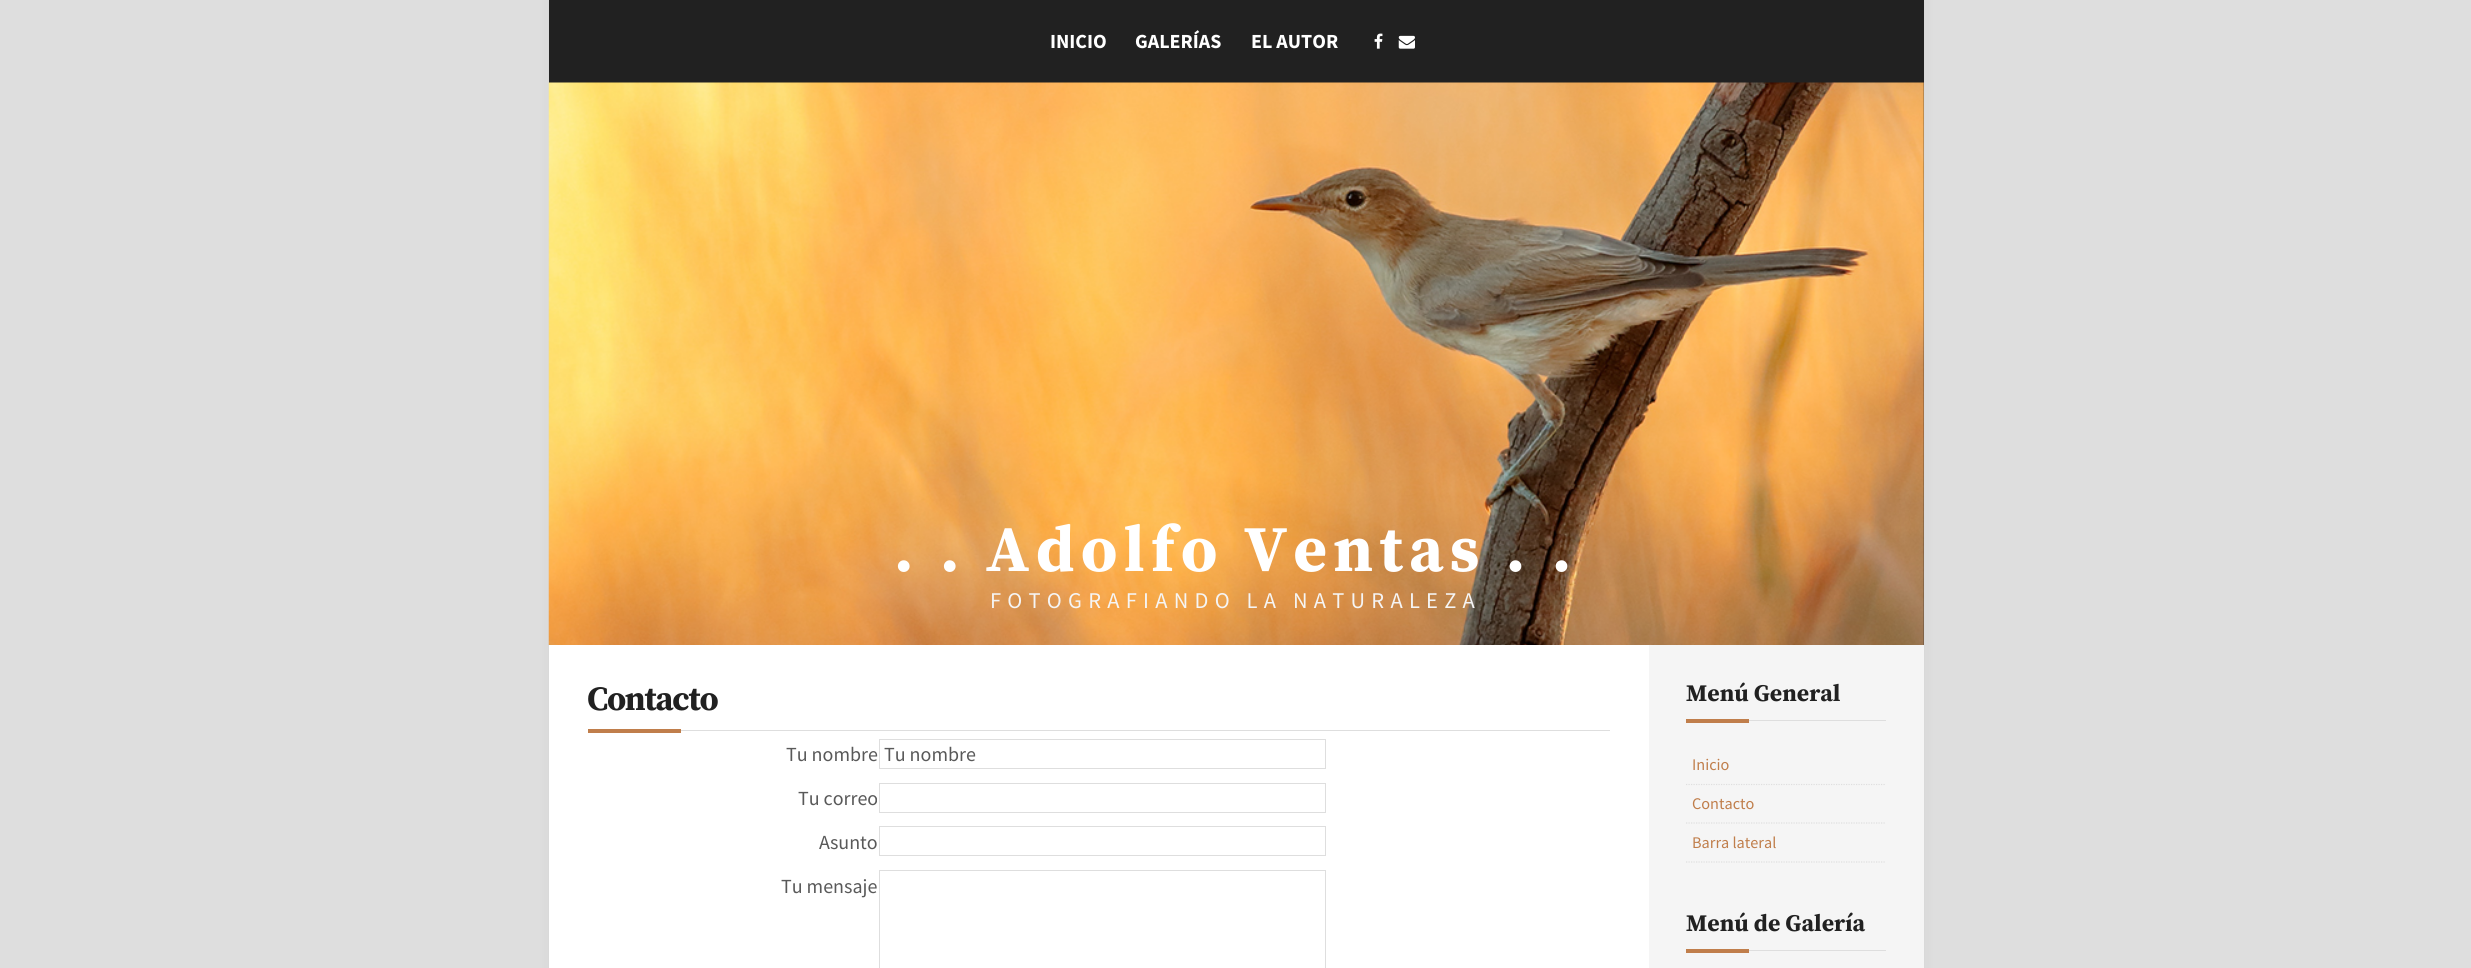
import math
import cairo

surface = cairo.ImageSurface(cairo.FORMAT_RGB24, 2471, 968)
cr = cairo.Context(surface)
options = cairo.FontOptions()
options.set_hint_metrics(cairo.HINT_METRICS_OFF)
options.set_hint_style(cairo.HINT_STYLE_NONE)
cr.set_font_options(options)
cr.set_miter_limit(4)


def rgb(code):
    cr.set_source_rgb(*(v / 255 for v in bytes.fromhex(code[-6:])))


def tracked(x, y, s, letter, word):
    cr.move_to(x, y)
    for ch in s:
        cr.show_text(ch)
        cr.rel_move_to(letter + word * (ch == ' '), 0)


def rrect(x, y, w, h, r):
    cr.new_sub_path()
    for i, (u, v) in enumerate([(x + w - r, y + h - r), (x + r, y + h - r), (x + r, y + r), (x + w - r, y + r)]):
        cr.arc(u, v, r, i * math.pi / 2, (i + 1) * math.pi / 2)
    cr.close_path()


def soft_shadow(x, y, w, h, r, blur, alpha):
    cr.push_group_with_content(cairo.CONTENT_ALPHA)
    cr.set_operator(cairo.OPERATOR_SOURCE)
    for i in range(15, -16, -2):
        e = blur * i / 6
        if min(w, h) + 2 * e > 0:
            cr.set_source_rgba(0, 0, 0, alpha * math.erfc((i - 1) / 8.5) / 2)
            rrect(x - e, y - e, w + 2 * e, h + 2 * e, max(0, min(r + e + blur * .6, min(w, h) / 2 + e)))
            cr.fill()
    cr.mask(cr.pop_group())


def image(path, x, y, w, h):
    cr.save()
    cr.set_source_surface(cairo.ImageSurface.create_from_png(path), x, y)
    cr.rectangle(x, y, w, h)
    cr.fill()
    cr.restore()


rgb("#dedede")
cr.paint()
rgb("#000000")
soft_shadow(549, 0, 1375, 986, 0, 6, 0.05)
rgb("#212121")
cr.rectangle(549, 0, 1375, 645)
cr.fill()
image("img/1.png", 1374, 33, 9, 16)
image("img/2.png", 1398, 35, 17, 14)
image("img/3.png", 548, 82, 1376, 563)
for x, y, w, h, color in [
    (1649, 645, 275, 323, "#f5f5f5"),
    (549, 645, 1100, 323, "#ffffff"),
    (681, 730, 929, 1, "#dedede"),
    (588, 729, 93, 4, "#c07e4b"),
]:
    rgb(color)
    cr.rectangle(x, y, w, h)
    cr.fill()
cr.rectangle(879.5, 739.5, 446, 29)
rgb("#dedede")
cr.set_line_width(1)
cr.stroke()
cr.rectangle(879.5, 783.5, 446, 29)
cr.stroke()
cr.rectangle(879.5, 826.5, 446, 29)
cr.stroke()
cr.rectangle(879.5, 870.5, 446, 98)
cr.stroke()
cr.rectangle(1749, 720, 137, 1)
cr.fill()
rgb("#c07e4b")
cr.rectangle(1686, 719, 63, 4)
cr.fill()
cr.new_path()
cr.move_to(1686, 784.5)
cr.line_to(1886, 784.5)
rgb("#dedede")
cr.set_line_width(1.2)
cr.set_dash([1.25, 1.25])
cr.stroke()
cr.new_path()
cr.move_to(1686, 823)
cr.line_to(1886, 823)
cr.stroke()
cr.new_path()
cr.move_to(1686, 862)
cr.line_to(1886, 862)
cr.stroke()
cr.rectangle(1749, 950, 137, 1)
cr.fill()
rgb("#c07e4b")
cr.rectangle(1686, 949, 63, 4)
cr.fill()
cr.select_font_face("Source Sans Pro", cairo.FONT_SLANT_NORMAL, cairo.FONT_WEIGHT_BOLD)
cr.set_font_size(20)
rgb("#ffffff")
for x, y, s in [
    (1050, 48, "INICIO"),
    (1135, 48, "GALERÍAS"),
    (1251, 48, "EL AUTOR"),
]:
    cr.move_to(x, y)
    cr.show_text(s)
cr.select_font_face("Source Serif Pro", cairo.FONT_SLANT_NORMAL, cairo.FONT_WEIGHT_BOLD)
cr.set_font_size(65)
tracked(894, 571, ". . Adolfo Ventas . .", 6.25, 0)
cr.select_font_face("Source Sans Pro")
cr.set_font_size(22.5)
rgb("#f5f5f5")
tracked(990, 608, "FOTOGRAFIANDO LA NATURALEZA", 6.25, 0)
cr.select_font_face("Source Serif Pro", cairo.FONT_SLANT_NORMAL, cairo.FONT_WEIGHT_BOLD)
cr.set_font_size(34)
rgb("#212121")
tracked(587, 710, "Contacto", -1.25, 0)
cr.select_font_face("Source Sans Pro")
cr.set_font_size(20)
rgb("#595959")
for x, y, s in [
    (786, 761, "Tu nombre"),
    (884, 761, "Tu nombre"),
    (798, 805, "Tu correo"),
    (819, 849, "Asunto"),
    (781, 893, "Tu mensaje"),
]:
    cr.move_to(x, y)
    cr.show_text(s)
cr.select_font_face("Source Serif Pro", cairo.FONT_SLANT_NORMAL, cairo.FONT_WEIGHT_BOLD)
cr.set_font_size(23.75)
rgb("#212121")
cr.move_to(1686, 701)
cr.show_text("Menú General")
cr.select_font_face("Source Sans Pro")
cr.set_font_size(16.25)
rgb("#c07e4b")
for x, y, s in [
    (1692, 770, "Inicio"),
    (1692, 809, "Contacto"),
    (1692, 848, "Barra lateral"),
]:
    cr.move_to(x, y)
    cr.show_text(s)
cr.select_font_face("Source Serif Pro", cairo.FONT_SLANT_NORMAL, cairo.FONT_WEIGHT_BOLD)
cr.set_font_size(23.75)
rgb("#212121")
cr.move_to(1686, 931)
cr.show_text("Menú de Galería")
surface.write_to_png("page.png")
